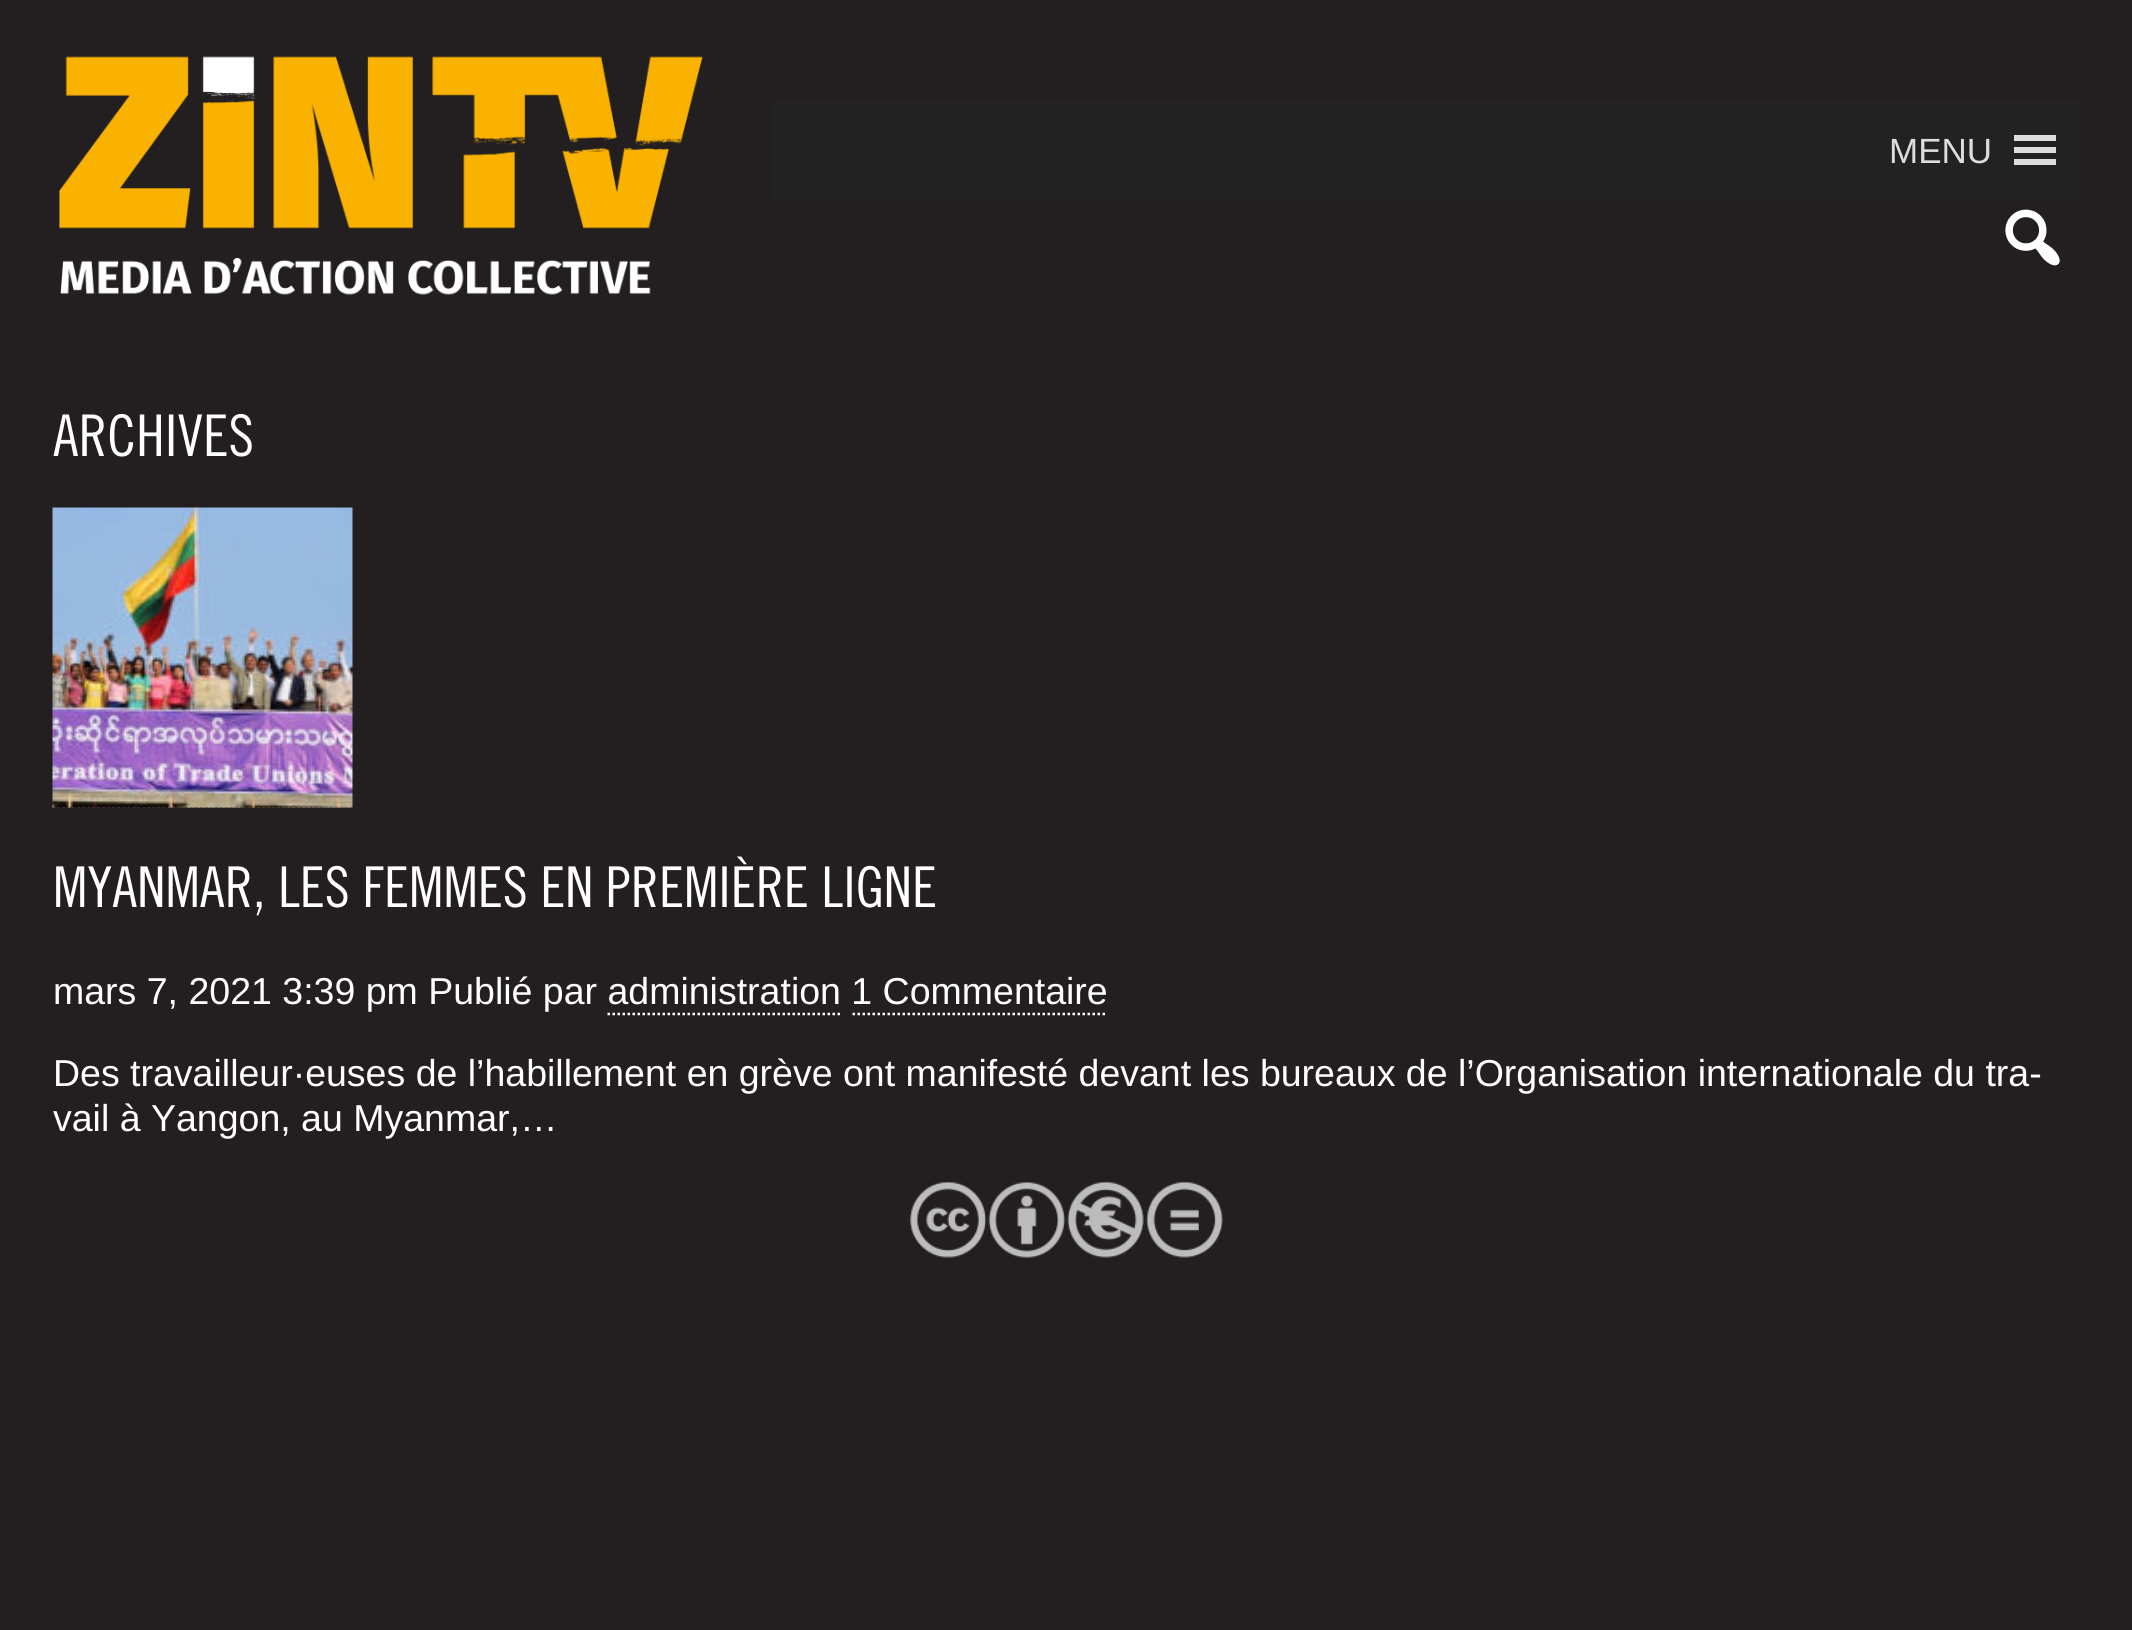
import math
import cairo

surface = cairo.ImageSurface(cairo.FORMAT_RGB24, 2132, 1630)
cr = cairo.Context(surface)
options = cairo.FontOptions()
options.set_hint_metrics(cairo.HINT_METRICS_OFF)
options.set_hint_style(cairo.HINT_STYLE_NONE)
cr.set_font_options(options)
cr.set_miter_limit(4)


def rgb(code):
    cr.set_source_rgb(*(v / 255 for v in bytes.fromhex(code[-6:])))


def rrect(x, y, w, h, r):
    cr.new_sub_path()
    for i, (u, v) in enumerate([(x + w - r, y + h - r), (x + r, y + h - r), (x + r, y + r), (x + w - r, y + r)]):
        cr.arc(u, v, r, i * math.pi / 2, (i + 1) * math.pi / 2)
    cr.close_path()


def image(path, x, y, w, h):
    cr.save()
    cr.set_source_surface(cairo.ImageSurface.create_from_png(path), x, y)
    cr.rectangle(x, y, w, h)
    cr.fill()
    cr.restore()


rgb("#231f20")
cr.paint()
image("img/1.png", 59, 56, 644, 239)
rgb("#222222")
rrect(770, 100, 1310, 100, 5)
cr.fill()
rgb("#dddddd")
cr.new_path()
cr.move_to(2014, 165)
cr.line_to(2056, 165)
cr.line_to(2056, 159)
cr.line_to(2014, 159)
cr.close_path()
cr.move_to(2014, 135)
cr.line_to(2014, 141)
cr.line_to(2056, 141)
cr.line_to(2056, 135)
cr.close_path()
cr.move_to(2014, 153)
cr.line_to(2056, 153)
cr.line_to(2056, 147)
cr.line_to(2014, 147)
cr.close_path()
cr.fill()
image("img/2.png", 2005, 209, 55, 57)
cr.new_path()
cr.move_to(52.5, 806)
cr.line_to(352.5, 806)
rgb("#ffffff")
cr.set_line_width(2.5)
cr.set_dash([2.5, 2.5])
cr.stroke()
image("img/3.png", 52, 507, 301, 301)
cr.new_path()
cr.move_to(607.5, 1014)
cr.line_to(842.5, 1014)
cr.stroke()
cr.new_path()
cr.move_to(852.5, 1014)
cr.line_to(1107.5, 1014)
cr.stroke()
image("img/4.png", 910, 1181, 313, 77)
cr.select_font_face("Liberation Sans")
cr.set_font_size(35)
rgb("#dddddd")
cr.move_to(1889, 163)
cr.show_text("MENU")
cr.select_font_face("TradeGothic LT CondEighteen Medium")
cr.set_font_size(57.5)
rgb("#ffffff")
cr.move_to(53, 456)
cr.show_text("ARCHIVES")
cr.set_font_size(56.25)
cr.move_to(53, 907)
cr.show_text("MYANMAR, LES FEMMES EN PREMIÈRE LIGNE")
cr.select_font_face("Liberation Sans")
cr.set_font_size(37.5)
for x, y, s in [
    (53, 1004, "mars 7, 2021 3:39 pm Publié par administration 1 Commentaire"),
    (53, 1086, "Des travailleur·euses de l’habillement en grève ont manifesté devant les bureaux de l’Organisation internationale du tra-"),
    (53, 1131, "vail à Yangon, au Myanmar,…"),
]:
    cr.move_to(x, y)
    cr.show_text(s)
surface.write_to_png("page.png")
